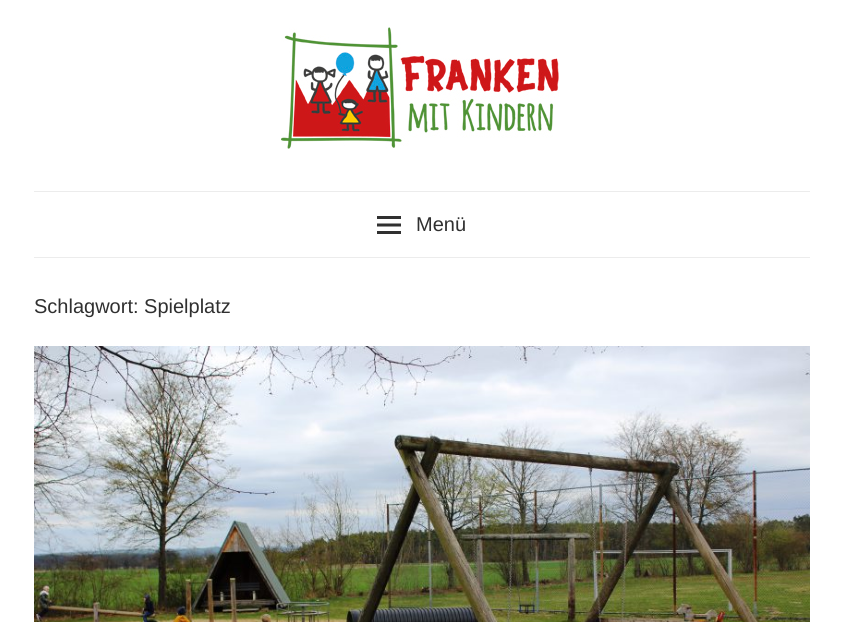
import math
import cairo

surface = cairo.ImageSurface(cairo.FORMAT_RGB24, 844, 622)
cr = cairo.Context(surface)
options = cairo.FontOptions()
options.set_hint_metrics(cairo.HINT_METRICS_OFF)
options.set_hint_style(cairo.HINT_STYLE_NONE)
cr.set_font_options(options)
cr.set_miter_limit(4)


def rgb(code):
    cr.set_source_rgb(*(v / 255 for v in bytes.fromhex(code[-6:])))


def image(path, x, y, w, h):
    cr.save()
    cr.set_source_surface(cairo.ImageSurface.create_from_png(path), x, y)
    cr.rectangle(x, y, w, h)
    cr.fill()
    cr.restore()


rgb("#ffffff")
cr.paint()
rgb("#ececec")
cr.rectangle(34, 257, 776, 1)
cr.fill()
image("img/1.png", 281, 27, 278, 122)
cr.rectangle(34, 191, 776, 1)
cr.fill()
image("img/2.png", 377, 216, 24, 18)
image("img/3.png", 34, 346, 776, 276)
cr.select_font_face("Liberation Sans")
cr.set_font_size(20)
rgb("#303030")
cr.move_to(416, 231)
cr.show_text("Menü")
cr.move_to(34, 313)
cr.show_text("Schlagwort: Spielplatz")
surface.write_to_png("page.png")
